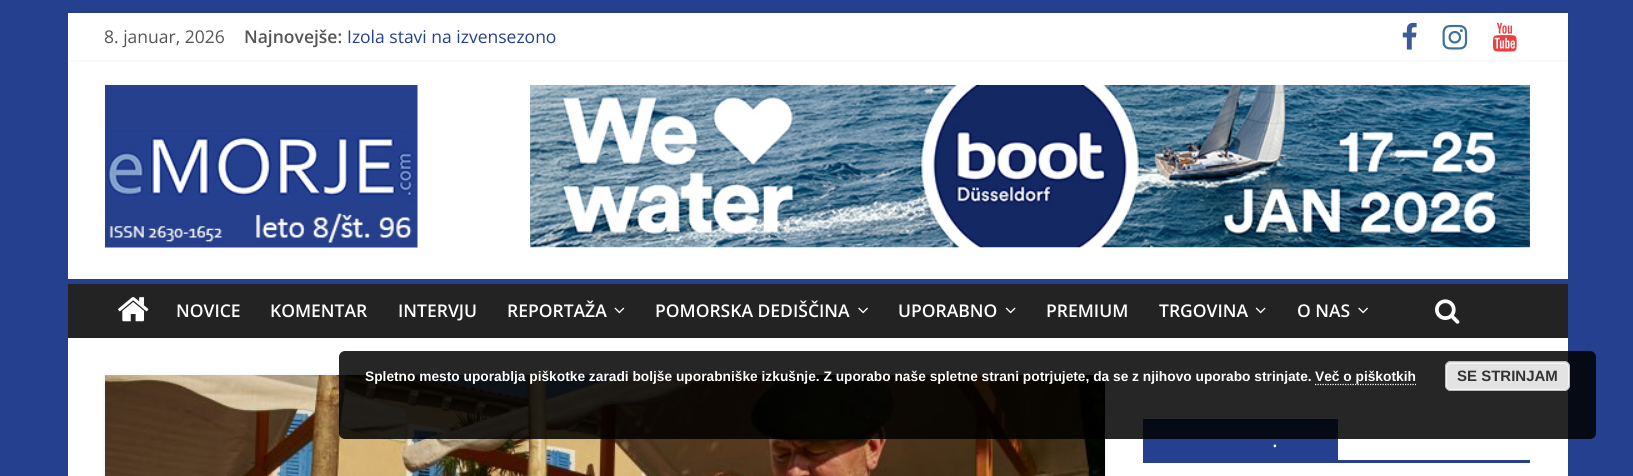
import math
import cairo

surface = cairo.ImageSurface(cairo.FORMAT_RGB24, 1633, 476)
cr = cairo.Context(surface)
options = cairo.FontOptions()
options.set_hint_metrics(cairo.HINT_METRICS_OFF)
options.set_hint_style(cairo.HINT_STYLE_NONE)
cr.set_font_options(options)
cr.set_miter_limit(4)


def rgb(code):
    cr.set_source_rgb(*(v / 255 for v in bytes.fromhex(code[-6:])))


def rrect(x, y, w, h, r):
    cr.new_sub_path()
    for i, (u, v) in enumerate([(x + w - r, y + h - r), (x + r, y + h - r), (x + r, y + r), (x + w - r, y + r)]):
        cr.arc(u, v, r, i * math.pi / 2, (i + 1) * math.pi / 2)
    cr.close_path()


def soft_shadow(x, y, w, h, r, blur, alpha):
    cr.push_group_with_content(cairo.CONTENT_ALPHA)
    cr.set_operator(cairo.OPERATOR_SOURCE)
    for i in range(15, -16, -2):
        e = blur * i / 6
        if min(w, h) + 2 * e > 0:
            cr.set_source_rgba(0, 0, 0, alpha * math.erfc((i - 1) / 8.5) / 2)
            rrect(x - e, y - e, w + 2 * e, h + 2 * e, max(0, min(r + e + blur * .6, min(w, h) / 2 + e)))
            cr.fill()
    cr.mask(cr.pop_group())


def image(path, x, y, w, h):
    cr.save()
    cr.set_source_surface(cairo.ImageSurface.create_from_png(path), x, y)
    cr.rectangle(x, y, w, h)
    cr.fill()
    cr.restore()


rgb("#25408f")
cr.paint()
rgb("#ffffff")
cr.rectangle(68, 60, 1500, 219)
cr.fill()
rgb("#000000")
soft_shadow(68, 13, 1500, 47, 0, 1, 0.1)
rgb("#ffffff")
cr.rectangle(68, 13, 1500, 47)
cr.fill()
image("img/1.png", 1402, 22, 15, 28)
image("img/2.png", 1442, 24, 26, 26)
image("img/3.png", 1492, 22, 25, 30)
image("img/4.png", 105, 85, 313, 163)
image("img/5.png", 530, 85, 1000, 163)
rgb("#232323")
cr.rectangle(68, 284, 1500, 54)
cr.fill()
image("img/6.png", 118, 297, 31, 25)
image("img/7.png", 614, 307, 11, 7)
image("img/8.png", 858, 307, 10, 7)
image("img/9.png", 1005, 307, 11, 7)
image("img/9.png", 1255, 307, 11, 7)
image("img/8.png", 1358, 307, 10, 7)
image("img/10.png", 1435, 299, 25, 25)
rgb("#ffffff")
cr.rectangle(68, 338, 1500, 138)
cr.fill()
rgb("#000000")
soft_shadow(105, 376, 1000, 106, 0, 2, 0.1)
image("img/11.png", 105, 375, 1000, 101)
rgb("#25408f")
cr.rectangle(1143, 460, 387, 3)
cr.fill()
cr.rectangle(1143, 419, 195, 41)
cr.fill()
cr.set_source_rgba(0, 0, 0, 0.85)
rrect(339, 351, 1257, 88, 6)
cr.fill()
cr.new_path()
cr.move_to(1315, 384.5)
cr.line_to(1416, 384.5)
rgb("#ffffff")
cr.set_line_width(1.2)
cr.set_dash([1.25, 1.25])
cr.stroke()
rgb("#e3e3e3")
rrect(1445, 361, 125, 30, 6)
cr.fill()
rrect(1446.5, 363.5, 122, 26, 4.5)
rgb("#f6f6f6")
cr.set_line_width(1)
cr.set_dash([])
cr.stroke()
rrect(1445.5, 361.5, 124, 29, 5.5)
rgb("#bbbbbb")
cr.stroke()
cr.select_font_face("Open Sans")
cr.set_font_size(17.5)
rgb("#555555")
cr.move_to(104, 43)
cr.show_text("8. januar, 2026")
cr.select_font_face("Open Sans SemiBold")
cr.move_to(244, 43)
cr.show_text("Najnovejše:")
cr.select_font_face("Open Sans")
rgb("#25408f")
cr.move_to(347, 43)
cr.show_text("Izola stavi na izvensezono")
cr.select_font_face("Open Sans SemiBold")
rgb("#ffffff")
for x, y, s in [
    (176, 317, "NOVICE"),
    (270, 317, "KOMENTAR"),
    (398, 317, "INTERVJU"),
    (507, 317, "REPORTAŽA"),
    (655, 317, "POMORSKA DEDIŠČINA"),
    (898, 317, "UPORABNO"),
    (1046, 317, "PREMIUM"),
    (1159, 317, "TRGOVINA"),
    (1297, 317, "O NAS"),
]:
    cr.move_to(x, y)
    cr.show_text(s)
cr.select_font_face("Open Sans")
cr.set_font_size(22)
cr.move_to(1272, 447)
cr.show_text(".")
cr.select_font_face("Liberation Sans", cairo.FONT_SLANT_NORMAL, cairo.FONT_WEIGHT_BOLD)
cr.set_font_size(13.75)
cr.move_to(365, 381)
cr.show_text("Spletno mesto uporablja piškotke zaradi boljše uporabniške izkušnje. Z uporabo naše spletne strani potrjujete, da se z njihovo uporabo strinjate.")
cr.move_to(1315, 381)
cr.show_text("Več o piškotkih")
cr.set_font_size(15)
rgb("#333333")
cr.move_to(1457, 381)
cr.show_text("SE STRINJAM")
surface.write_to_png("page.png")
